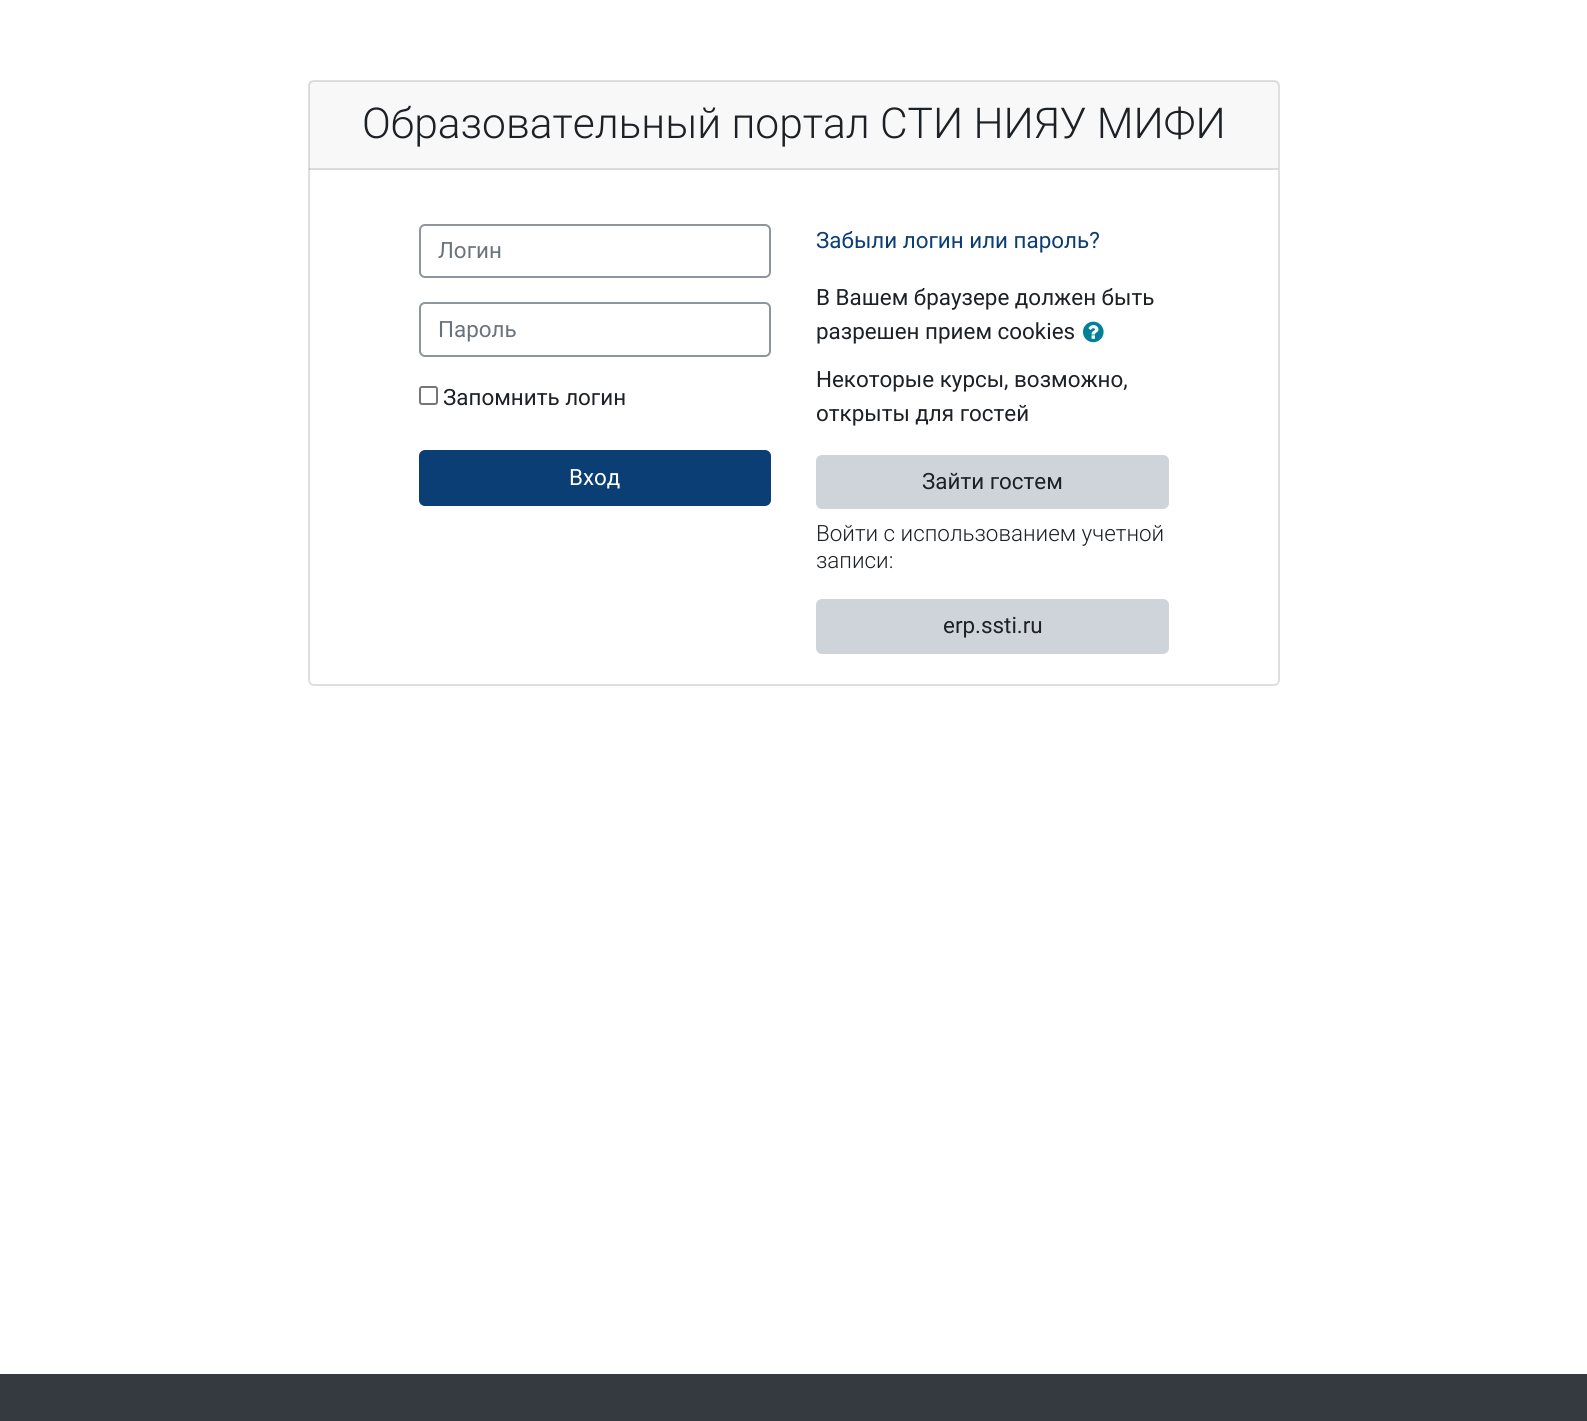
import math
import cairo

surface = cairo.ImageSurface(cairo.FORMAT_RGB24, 1587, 1421)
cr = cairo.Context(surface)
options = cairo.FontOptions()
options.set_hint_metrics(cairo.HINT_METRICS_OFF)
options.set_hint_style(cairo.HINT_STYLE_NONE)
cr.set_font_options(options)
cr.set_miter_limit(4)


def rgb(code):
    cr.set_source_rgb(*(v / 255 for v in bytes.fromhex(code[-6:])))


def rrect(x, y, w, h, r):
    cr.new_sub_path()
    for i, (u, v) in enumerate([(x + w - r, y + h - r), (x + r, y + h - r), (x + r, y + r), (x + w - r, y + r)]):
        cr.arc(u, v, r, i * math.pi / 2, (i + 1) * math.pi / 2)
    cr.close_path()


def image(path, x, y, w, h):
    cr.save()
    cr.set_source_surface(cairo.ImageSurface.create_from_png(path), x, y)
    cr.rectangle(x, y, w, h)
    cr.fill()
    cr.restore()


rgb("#ffffff")
cr.paint()
rrect(309, 81, 970, 604, 5)
rgb("#dfdfdf")
cr.stroke()
cr.set_source_rgba(0, 0, 0, 0.03)
cr.rectangle(309, 81, 969, 89)
cr.fill()
cr.set_source_rgba(0, 0, 0, 0.12)
cr.rectangle(309, 168, 969, 2)
cr.fill()
rrect(420, 225, 350, 52, 5)
rgb("#8f959e")
cr.stroke()
rrect(420, 303, 350, 53, 5)
cr.stroke()
rrect(420, 387, 17, 17, 2)
rgb("#767676")
cr.stroke()
rgb("#0b3e74")
rrect(420, 451, 350, 54, 5)
cr.fill_preserve()
cr.stroke()
image("img/1.png", 1083, 321, 21, 22)
rgb("#ced4da")
rrect(817, 456, 351, 52, 5)
cr.fill_preserve()
cr.stroke()
rrect(817, 600, 351, 53, 5)
cr.fill_preserve()
cr.stroke()
rgb("#343a40")
cr.rectangle(0, 1374, 1587, 47)
cr.fill()
cr.select_font_face("Roboto Light")
cr.set_font_size(42.5)
rgb("#1d2125")
cr.move_to(362, 138)
cr.show_text("Образовательный портал СТИ НИЯУ МИФИ")
cr.select_font_face("Roboto")
cr.set_font_size(22.4)
rgb("#6a737b")
cr.move_to(438, 258)
cr.show_text("Логин")
cr.move_to(438, 337)
cr.show_text("Пароль")
rgb("#1d2125")
cr.move_to(443, 405)
cr.show_text("Запомнить логин")
rgb("#ffffff")
cr.move_to(569, 485)
cr.show_text("Вход")
rgb("#0b3e74")
cr.move_to(816, 248)
cr.show_text("Забыли логин или пароль?")
rgb("#1d2125")
for x, y, s in [
    (816, 305, "В Вашем браузере должен быть"),
    (816, 339, "разрешен прием cookies"),
    (816, 387, "Некоторые курсы, возможно,"),
    (816, 421, "открыты для гостей"),
    (922, 489, "Зайти гостем"),
]:
    cr.move_to(x, y)
    cr.show_text(s)
cr.select_font_face("Roboto Light")
cr.move_to(816, 541)
cr.show_text("Войти с использованием учетной")
cr.move_to(816, 568)
cr.show_text("записи:")
cr.select_font_face("Roboto")
cr.move_to(943, 633)
cr.show_text("erp.ssti.ru")
surface.write_to_png("page.png")
